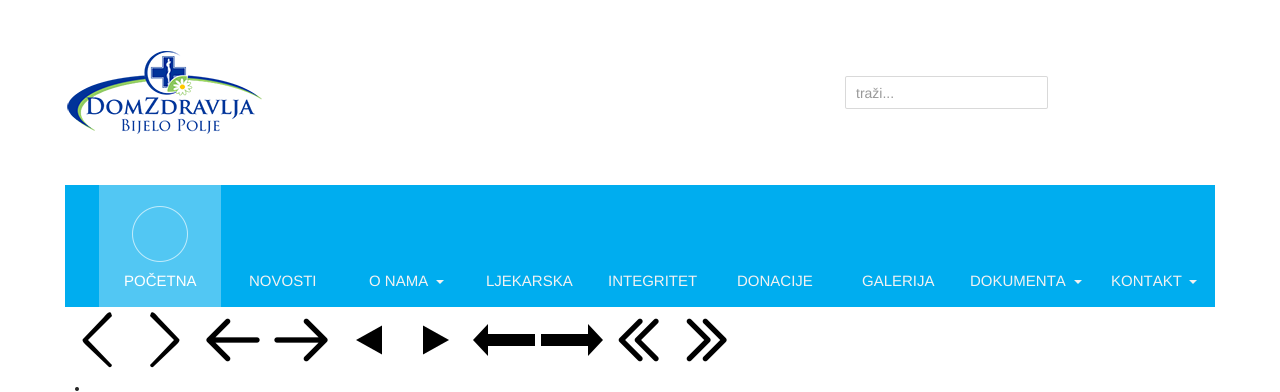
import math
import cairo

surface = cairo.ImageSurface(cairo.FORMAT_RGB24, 1280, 392)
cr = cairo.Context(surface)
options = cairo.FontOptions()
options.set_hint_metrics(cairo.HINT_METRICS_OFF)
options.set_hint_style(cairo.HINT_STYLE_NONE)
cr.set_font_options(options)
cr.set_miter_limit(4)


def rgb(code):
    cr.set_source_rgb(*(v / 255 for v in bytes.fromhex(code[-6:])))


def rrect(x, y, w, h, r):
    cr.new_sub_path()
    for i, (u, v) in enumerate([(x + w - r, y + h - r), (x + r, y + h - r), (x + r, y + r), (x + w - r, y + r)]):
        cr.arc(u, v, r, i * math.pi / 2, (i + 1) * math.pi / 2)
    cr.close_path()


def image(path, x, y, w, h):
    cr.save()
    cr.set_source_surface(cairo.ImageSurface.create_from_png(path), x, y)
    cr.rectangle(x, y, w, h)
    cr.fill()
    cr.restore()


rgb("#ffffff")
cr.paint()
image("img/1.png", 67, 51, 195, 83)
rrect(845.5, 76.5, 202, 32, 1.5)
rgb("#d9d9d9")
cr.set_line_width(1)
cr.stroke()
rgb("#00adef")
cr.rectangle(65, 185, 1150, 122)
cr.fill()
rgb("#52c7f3")
cr.rectangle(99, 185, 122, 122)
cr.fill()
cr.arc(160, 234, 27.5, 0, 2 * math.pi)
rgb("#c0ebfb")
cr.stroke()
rgb("#f2f2f2")
cr.new_path()
cr.move_to(436, 280)
cr.line_to(444, 280)
cr.line_to(440, 284)
cr.close_path()
cr.fill()
cr.new_path()
cr.move_to(1074, 280)
cr.line_to(1082, 280)
cr.line_to(1078, 284)
cr.close_path()
cr.fill()
cr.new_path()
cr.move_to(1189, 280)
cr.line_to(1197, 280)
cr.line_to(1193, 284)
cr.close_path()
cr.fill()
rgb("#000000")
cr.new_path()
cr.move_to(111, 364)
cr.curve_to(113, 365, 111, 368, 109, 367)
cr.line_to(87, 346)
cr.curve_to(86, 345, 81, 341, 83, 339)
cr.line_to(104, 317)
cr.curve_to(104, 317, 109, 310, 111, 313)
cr.line_to(112, 316)
cr.line_to(88, 340)
cr.close_path()
cr.fill()
cr.new_path()
cr.move_to(151, 364)
cr.curve_to(149, 365, 151, 368, 153, 367)
cr.line_to(175, 346)
cr.curve_to(176, 345, 181, 341, 179, 339)
cr.line_to(158, 317)
cr.curve_to(158, 317, 153, 310, 151, 313)
cr.line_to(150, 316)
cr.line_to(174, 340)
cr.close_path()
cr.fill()
image("img/2.png", 206, 318, 54, 44)
image("img/3.png", 274, 318, 54, 44)
cr.new_path()
cr.move_to(382, 325.5)
cr.line_to(382, 354.5)
cr.line_to(356, 340)
cr.close_path()
cr.fill()
cr.new_path()
cr.move_to(423, 325.5)
cr.line_to(423, 354.5)
cr.line_to(449, 340)
cr.close_path()
cr.fill()
cr.new_path()
cr.move_to(488, 356)
cr.line_to(488, 346)
cr.line_to(535, 346)
cr.line_to(535, 334)
cr.line_to(488, 334)
cr.line_to(488, 324)
cr.line_to(473, 340)
cr.close_path()
cr.fill()
cr.new_path()
cr.move_to(588, 356)
cr.line_to(588, 346)
cr.line_to(541, 346)
cr.line_to(541, 334)
cr.line_to(588, 334)
cr.line_to(588, 324)
cr.line_to(603, 340)
cr.close_path()
cr.fill()
image("img/4.png", 618, 318, 41, 44)
image("img/5.png", 686, 318, 41, 44)
rgb("#272727")
cr.arc(77, 389, 2, 0, 2 * math.pi)
cr.fill()
cr.select_font_face("Liberation Sans")
cr.set_font_size(14)
rgb("#999999")
cr.move_to(856, 98)
cr.show_text("traži...")
cr.set_font_size(15)
rgb("#ffffff")
cr.move_to(124, 286)
cr.show_text("POČETNA")
rgb("#f2f2f2")
for x, y, s in [
    (249, 286, "NOVOSTI"),
    (369, 286, "O NAMA"),
    (486, 286, "LJEKARSKA"),
    (608, 286, "INTEGRITET"),
    (737, 286, "DONACIJE"),
    (862, 286, "GALERIJA"),
    (970, 286, "DOKUMENTA"),
    (1111, 286, "KONTAKT"),
]:
    cr.move_to(x, y)
    cr.show_text(s)
surface.write_to_png("page.png")
